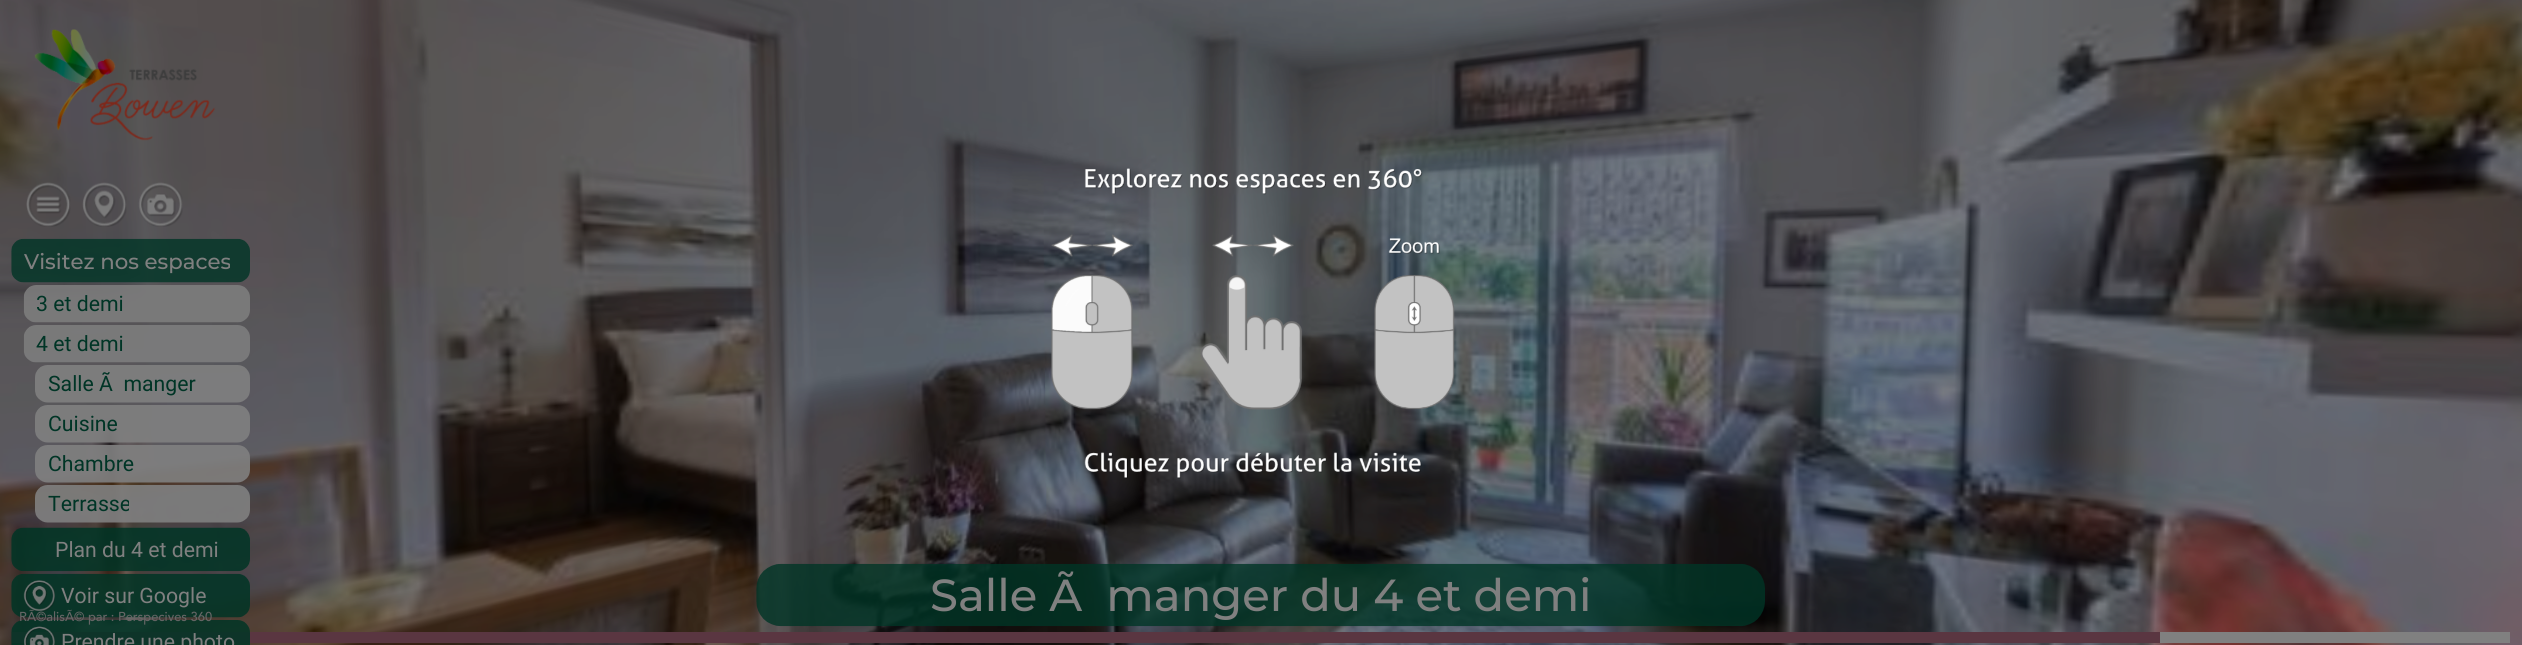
import math
import cairo

surface = cairo.ImageSurface(cairo.FORMAT_RGB24, 2522, 645)
cr = cairo.Context(surface)
options = cairo.FontOptions()
options.set_hint_metrics(cairo.HINT_METRICS_OFF)
options.set_hint_style(cairo.HINT_STYLE_NONE)
cr.set_font_options(options)
cr.set_miter_limit(4)


def rgb(code):
    cr.set_source_rgb(*(v / 255 for v in bytes.fromhex(code[-6:])))


def image(path, x, y, w, h):
    cr.save()
    cr.set_source_surface(cairo.ImageSurface.create_from_png(path), x, y)
    cr.rectangle(x, y, w, h)
    cr.fill()
    cr.restore()


rgb("#ffffff")
cr.paint()
image("img/2.png", 0, 0, 2522, 645)
image("img/1.png", 1051, 168, 404, 311)
rgb("#5a3641")
cr.rectangle(12, 632, 2148, 11)
cr.fill()
rgb("#808080")
cr.rectangle(2160, 632, 350, 11)
cr.fill()
image("img/3.png", 34, 29, 182, 112)
image("img/4.png", 26, 182, 45, 45)
image("img/5.png", 82, 182, 45, 45)
image("img/6.png", 138, 182, 45, 45)
image("img/7.png", 11, 238, 239, 45)
image("img/8.png", 23, 285, 227, 38)
image("img/9.png", 23, 325, 227, 38)
image("img/10.png", 35, 365, 215, 38)
image("img/11.png", 35, 405, 215, 38)
image("img/12.png", 35, 445, 215, 38)
image("img/13.png", 35, 485, 215, 38)
image("img/14.png", 11, 527, 239, 45)
image("img/15.png", 11, 573, 239, 45)
image("img/16.png", 23, 580, 32, 32)
image("img/17.png", 11, 620, 239, 25)
image("img/18.png", 24, 626, 31, 19)
image("img/19.png", 756, 563, 1009, 64)
cr.save()
cr.rectangle(24, 249, 206, 25)
cr.clip()
cr.select_font_face("Montserrat Medium")
cr.set_font_size(21.25)
cr.move_to(24, 269)
cr.show_text("Visitez nos espaces")
cr.restore()
cr.select_font_face("Roboto")
cr.set_font_size(21.25)
rgb("#003526")
for x, y, s in [
    (36, 311, "3 et demi"),
    (36, 351, "4 et demi"),
    (48, 391, "Salle Ã  manger"),
    (48, 431, "Cuisine"),
    (48, 471, "Chambre"),
]:
    cr.move_to(x, y)
    cr.show_text(s)
cr.save()
cr.rectangle(48, 491, 81, 25)
cr.clip()
cr.move_to(48, 511)
cr.show_text("Terrasse")
cr.restore()
rgb("#808080")
for x, y, s in [
    (55, 557, "Plan du 4 et demi"),
    (61, 603, "Voir sur Google"),
    (61, 649, "Prendre une photo"),
]:
    cr.move_to(x, y)
    cr.show_text(s)
cr.select_font_face("Montserrat Medium")
cr.set_font_size(44.9)
cr.move_to(930, 611)
cr.show_text("Salle Ã  manger du 4 et demi")
cr.select_font_face("Avenir Medium")
cr.set_font_size(12.9)
rgb("#666666")
cr.move_to(19, 621)
cr.show_text("RÃ©alisÃ© par : Perspecives 360")
surface.write_to_png("page.png")
